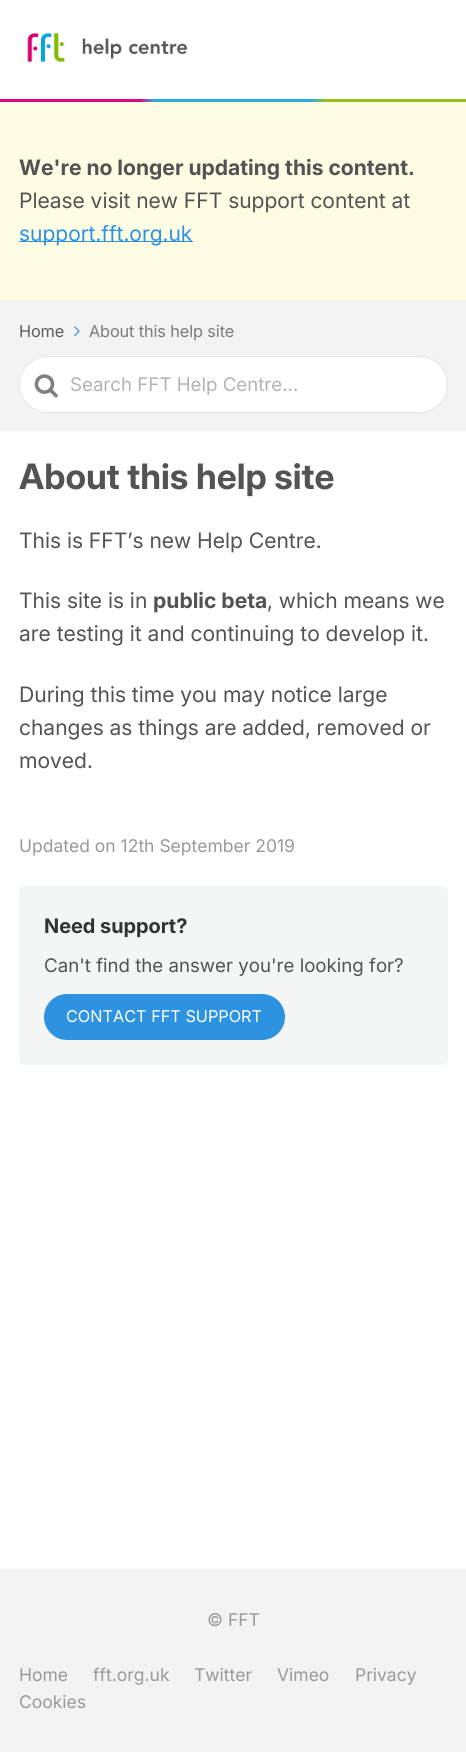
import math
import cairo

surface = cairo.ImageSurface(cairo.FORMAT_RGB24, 466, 1752)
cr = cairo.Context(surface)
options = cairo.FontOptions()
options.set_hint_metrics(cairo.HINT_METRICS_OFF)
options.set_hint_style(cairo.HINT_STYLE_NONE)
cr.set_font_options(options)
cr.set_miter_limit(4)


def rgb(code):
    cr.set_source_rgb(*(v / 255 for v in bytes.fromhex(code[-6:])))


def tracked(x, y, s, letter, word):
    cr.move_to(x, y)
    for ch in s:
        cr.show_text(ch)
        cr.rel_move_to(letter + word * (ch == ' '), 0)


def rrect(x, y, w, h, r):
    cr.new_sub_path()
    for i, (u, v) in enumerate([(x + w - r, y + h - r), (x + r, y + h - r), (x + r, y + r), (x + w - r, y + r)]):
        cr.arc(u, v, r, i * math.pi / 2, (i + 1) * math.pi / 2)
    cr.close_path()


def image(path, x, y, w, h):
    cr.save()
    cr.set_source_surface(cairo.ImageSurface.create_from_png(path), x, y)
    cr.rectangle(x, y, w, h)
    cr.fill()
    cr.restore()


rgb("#ffffff")
cr.paint()
image("img/1.png", 27, 33, 161, 30)
gradient = cairo.LinearGradient(0, 100, 466, 100)
gradient.add_color_stop_rgba(0, 0.902, 0, 0.494, 1)
gradient.add_color_stop_rgba(0.3, 0.902, 0, 0.494, 1)
gradient.add_color_stop_rgba(0.33, 0.176, 0.682, 0.882, 1)
gradient.add_color_stop_rgba(0.67, 0.176, 0.682, 0.882, 1)
gradient.add_color_stop_rgba(0.7, 0.588, 0.757, 0.122, 1)
gradient.add_color_stop_rgba(1, 0.588, 0.757, 0.122, 1)
cr.set_source(gradient)
cr.rectangle(0, 99, 466, 3)
cr.fill()
for x, y, w, h, color in [
    (0, 102, 466, 198, "#fefde4"),
    (19, 241, 174, 1, "#2d93e1"),
    (0, 300, 466, 131, "#f3f3f3"),
]:
    rgb(color)
    cr.rectangle(x, y, w, h)
    cr.fill()
image("img/2.png", 74, 326, 6, 10)
rgb("#ffffff")
rrect(19, 356, 429, 57, 28.5)
cr.fill()
rrect(19.5, 356.5, 428, 56, 28)
cr.set_source_rgba(0.8, 0.8, 0.8, 0.5)
cr.set_line_width(1)
cr.stroke()
image("img/3.png", 34, 374, 24, 24)
rgb("#f4f5f5")
rrect(19, 886, 429, 179, 6)
cr.fill()
rgb("#2d93e1")
rrect(44, 994, 241, 46, 23)
cr.fill()
rgb("#f3f3f3")
cr.rectangle(0, 1569, 466, 183)
cr.fill()
cr.select_font_face("Inter", cairo.FONT_SLANT_NORMAL, cairo.FONT_WEIGHT_BOLD)
cr.set_font_size(21.25)
rgb("#535353")
cr.move_to(19, 175)
cr.show_text("We're no longer updating this content.")
cr.select_font_face("Inter")
cr.move_to(19, 208)
cr.show_text("Please visit new FFT support content at")
rgb("#2d93e1")
cr.move_to(19, 241)
cr.show_text("support.fft.org.uk")
cr.select_font_face("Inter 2")
cr.set_font_size(16.25)
rgb("#5c5c5c")
tracked(19, 337, "Home", -0.1, 0)
rgb("#7a7a7a")
tracked(89, 337, "About this help site", -0.1, 0)
cr.select_font_face("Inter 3")
cr.set_font_size(18.75)
rgb("#b3b3b3")
cr.move_to(70, 391)
cr.show_text("Search FFT Help Centre...")
cr.select_font_face("Inter 2", cairo.FONT_SLANT_NORMAL, cairo.FONT_WEIGHT_BOLD)
cr.set_font_size(35)
rgb("#535353")
cr.move_to(19, 489)
cr.show_text("About this help site")
cr.select_font_face("Inter")
cr.set_font_size(21.25)
cr.move_to(19, 548)
cr.show_text("This is FFT’s new Help Centre.")
cr.move_to(19, 608)
cr.show_text("This site is in")
cr.select_font_face("Inter", cairo.FONT_SLANT_NORMAL, cairo.FONT_WEIGHT_BOLD)
cr.move_to(153, 608)
cr.show_text("public beta")
cr.select_font_face("Inter")
for x, y, s in [
    (267, 608, ", which means we"),
    (19, 641, "are testing it and continuing to develop it."),
    (19, 702, "During this time you may notice large"),
    (19, 735, "changes as things are added, removed or"),
    (19, 768, "moved."),
]:
    cr.move_to(x, y)
    cr.show_text(s)
cr.select_font_face("Inter 2")
cr.set_font_size(17.5)
rgb("#999999")
cr.move_to(19, 852)
cr.show_text("Updated on 12th September 2019")
cr.select_font_face("Inter 3", cairo.FONT_SLANT_NORMAL, cairo.FONT_WEIGHT_BOLD)
cr.set_font_size(20)
rgb("#333333")
cr.move_to(44, 933)
cr.show_text("Need support?")
cr.select_font_face("Inter 3")
cr.set_font_size(18.75)
rgb("#535353")
cr.move_to(44, 972)
cr.show_text("Can't find the answer you're looking for?")
cr.select_font_face("Inter 2")
cr.set_font_size(16.25)
rgb("#ffffff")
cr.move_to(66, 1022)
cr.show_text("CONTACT FFT SUPPORT")
cr.set_font_size(17.5)
rgb("#999999")
for x, y, s in [
    (207, 1626, "© FFT"),
    (19, 1681, "Home"),
    (93, 1681, "fft.org.uk"),
    (194, 1681, "Twitter"),
    (277, 1681, "Vimeo"),
    (355, 1681, "Privacy"),
    (19, 1708, "Cookies"),
]:
    cr.move_to(x, y)
    cr.show_text(s)
surface.write_to_png("page.png")
